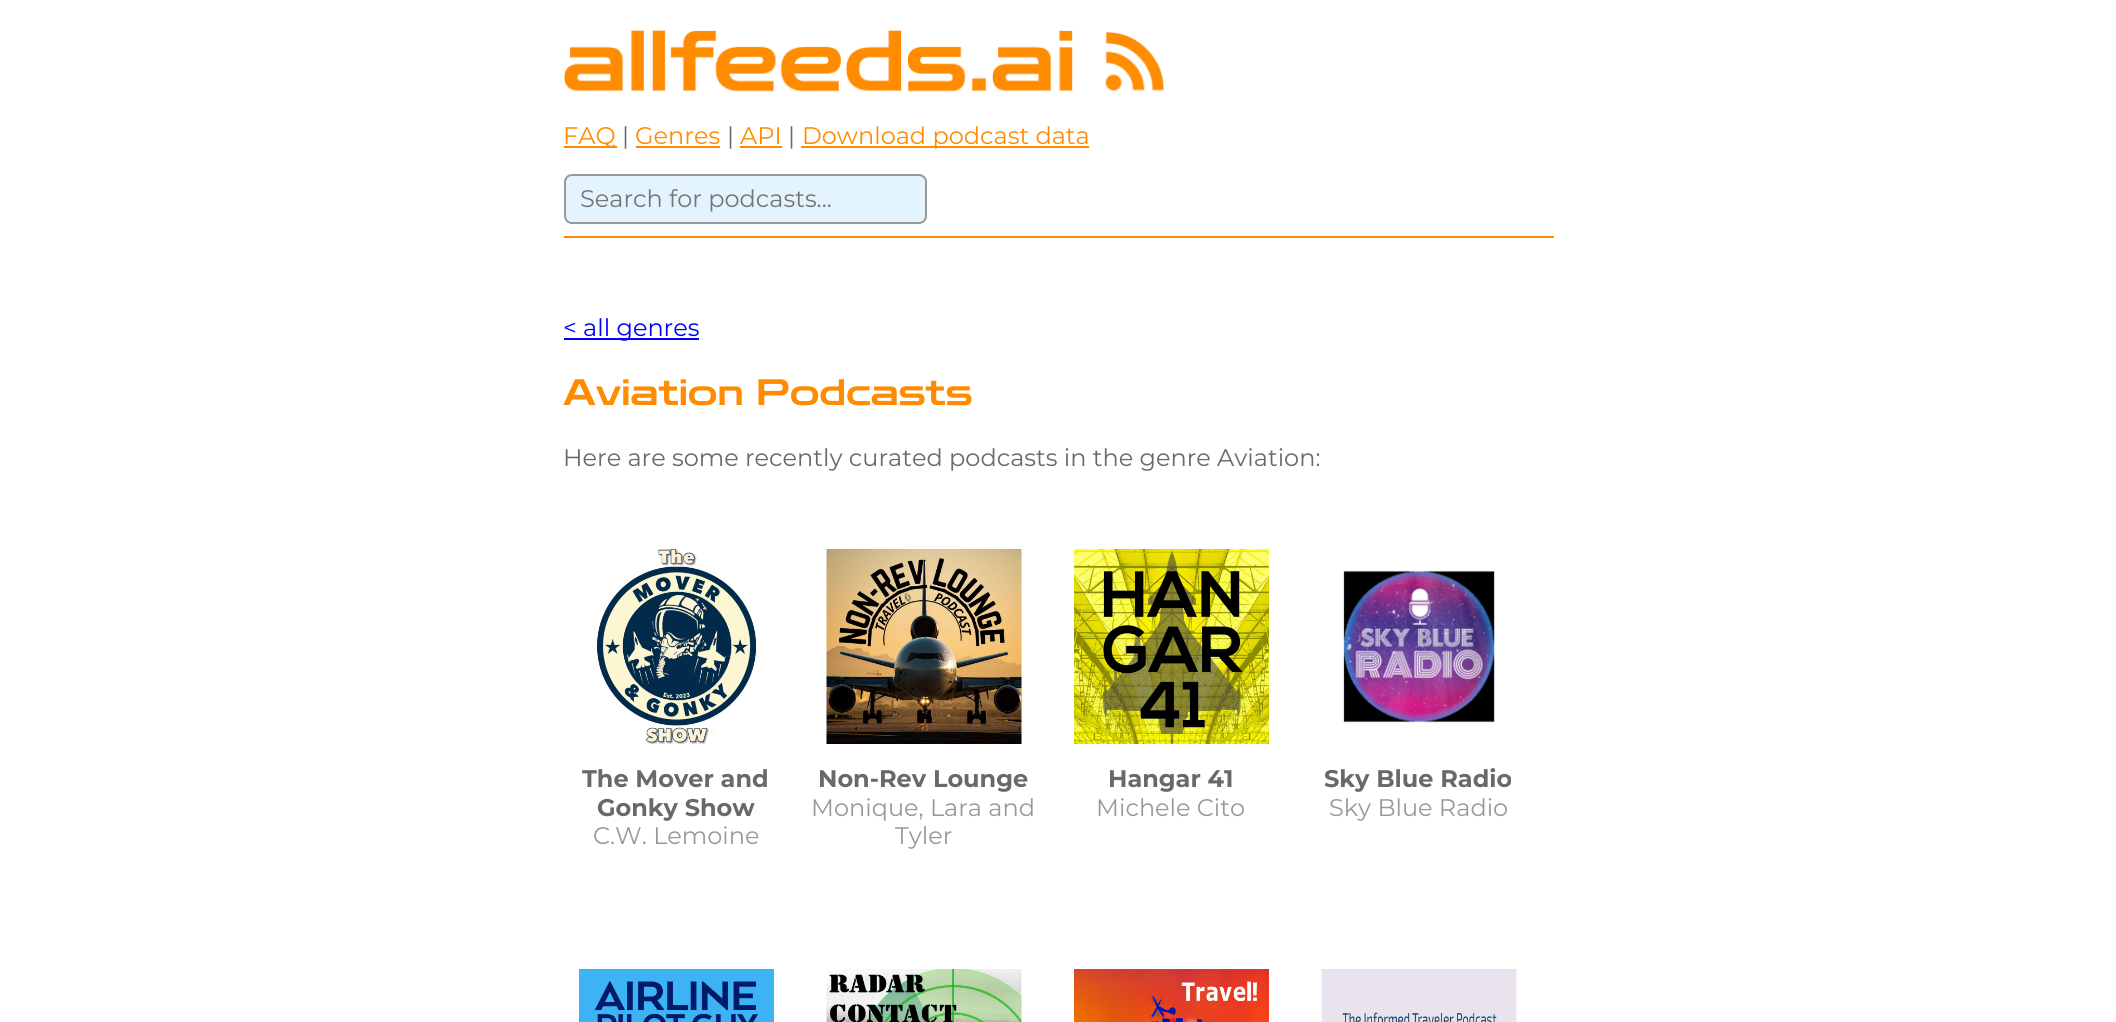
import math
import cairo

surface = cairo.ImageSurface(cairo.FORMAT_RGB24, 2116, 1022)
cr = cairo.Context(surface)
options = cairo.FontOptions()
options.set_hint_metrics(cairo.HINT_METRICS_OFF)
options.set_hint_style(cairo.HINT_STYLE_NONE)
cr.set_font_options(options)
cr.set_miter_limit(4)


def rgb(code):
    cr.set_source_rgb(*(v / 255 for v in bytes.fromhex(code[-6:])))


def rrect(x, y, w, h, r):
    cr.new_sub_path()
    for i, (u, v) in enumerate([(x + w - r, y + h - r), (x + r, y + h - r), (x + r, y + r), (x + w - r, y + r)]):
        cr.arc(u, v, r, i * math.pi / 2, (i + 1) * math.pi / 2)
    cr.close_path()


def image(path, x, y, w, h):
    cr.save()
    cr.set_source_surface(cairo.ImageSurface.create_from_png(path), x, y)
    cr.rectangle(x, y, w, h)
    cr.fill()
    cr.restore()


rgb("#ffffff")
cr.paint()
image("img/1.png", 564, 30, 600, 62)
for x, y, w, h, color in [
    (564, 146, 53, 2, "#ff8c00"),
    (636, 146, 84, 2, "#ff8c00"),
    (740, 146, 42, 2, "#ff8c00"),
    (801, 146, 288, 2, "#ff8c00"),
]:
    rgb(color)
    cr.rectangle(x, y, w, h)
    cr.fill()
rgb("#e4f4ff")
rrect(565, 175, 361, 48, 7)
cr.fill_preserve()
rgb("#999999")
cr.stroke()
rgb("#ff8c00")
cr.rectangle(564, 236, 990, 2)
cr.fill()
rgb("#0000ff")
cr.rectangle(564, 338, 135, 2)
cr.fill()
image("img/2.png", 596, 549, 161, 195)
image("img/3.png", 826, 549, 196, 195)
image("img/4.png", 1074, 549, 195, 195)
image("img/5.png", 1343, 570, 152, 153)
image("img/6.png", 579, 969, 195, 53)
image("img/7.png", 826, 969, 196, 53)
image("img/8.png", 1074, 969, 195, 53)
image("img/9.png", 1321, 969, 196, 53)
cr.select_font_face("Montserrat")
cr.set_font_size(24)
rgb("#ff8c00")
cr.move_to(563, 144)
cr.show_text("FAQ")
rgb("#696969")
cr.move_to(622, 144)
cr.show_text("|")
rgb("#ff8c00")
cr.move_to(635, 144)
cr.show_text("Genres")
rgb("#696969")
cr.move_to(727, 144)
cr.show_text("|")
rgb("#ff8c00")
cr.move_to(740, 144)
cr.show_text("API")
rgb("#696969")
cr.move_to(788, 144)
cr.show_text("|")
rgb("#ff8c00")
cr.move_to(802, 144)
cr.show_text("Download podcast data")
rgb("#757575")
cr.move_to(580, 207)
cr.show_text("Search for podcasts...")
rgb("#0000ff")
cr.move_to(563, 336)
cr.show_text("< all genres")
cr.select_font_face("Zen Dots")
cr.set_font_size(36)
rgb("#ff8c00")
cr.move_to(563, 405)
cr.show_text("Aviation Podcasts")
cr.select_font_face("Montserrat")
cr.set_font_size(24)
rgb("#696969")
cr.move_to(563, 466)
cr.show_text("Here are some recently curated podcasts in the genre Aviation:")
cr.select_font_face("Montserrat", cairo.FONT_SLANT_NORMAL, cairo.FONT_WEIGHT_BOLD)
cr.move_to(582, 787)
cr.show_text("The Mover and")
cr.move_to(597, 816)
cr.show_text("Gonky Show")
cr.select_font_face("Montserrat")
rgb("#999999")
cr.move_to(593, 844)
cr.show_text("C.W. Lemoine")
cr.select_font_face("Montserrat", cairo.FONT_SLANT_NORMAL, cairo.FONT_WEIGHT_BOLD)
rgb("#696969")
cr.move_to(818, 787)
cr.show_text("Non-Rev Lounge")
cr.select_font_face("Montserrat")
rgb("#999999")
cr.move_to(811, 816)
cr.show_text("Monique, Lara and")
cr.move_to(895, 844)
cr.show_text("Tyler")
cr.select_font_face("Montserrat", cairo.FONT_SLANT_NORMAL, cairo.FONT_WEIGHT_BOLD)
rgb("#696969")
cr.move_to(1108, 787)
cr.show_text("Hangar 41")
cr.select_font_face("Montserrat")
rgb("#999999")
cr.move_to(1096, 816)
cr.show_text("Michele Cito")
cr.select_font_face("Montserrat", cairo.FONT_SLANT_NORMAL, cairo.FONT_WEIGHT_BOLD)
rgb("#696969")
cr.move_to(1324, 787)
cr.show_text("Sky Blue Radio")
cr.select_font_face("Montserrat")
rgb("#999999")
cr.move_to(1329, 816)
cr.show_text("Sky Blue Radio")
surface.write_to_png("page.png")
